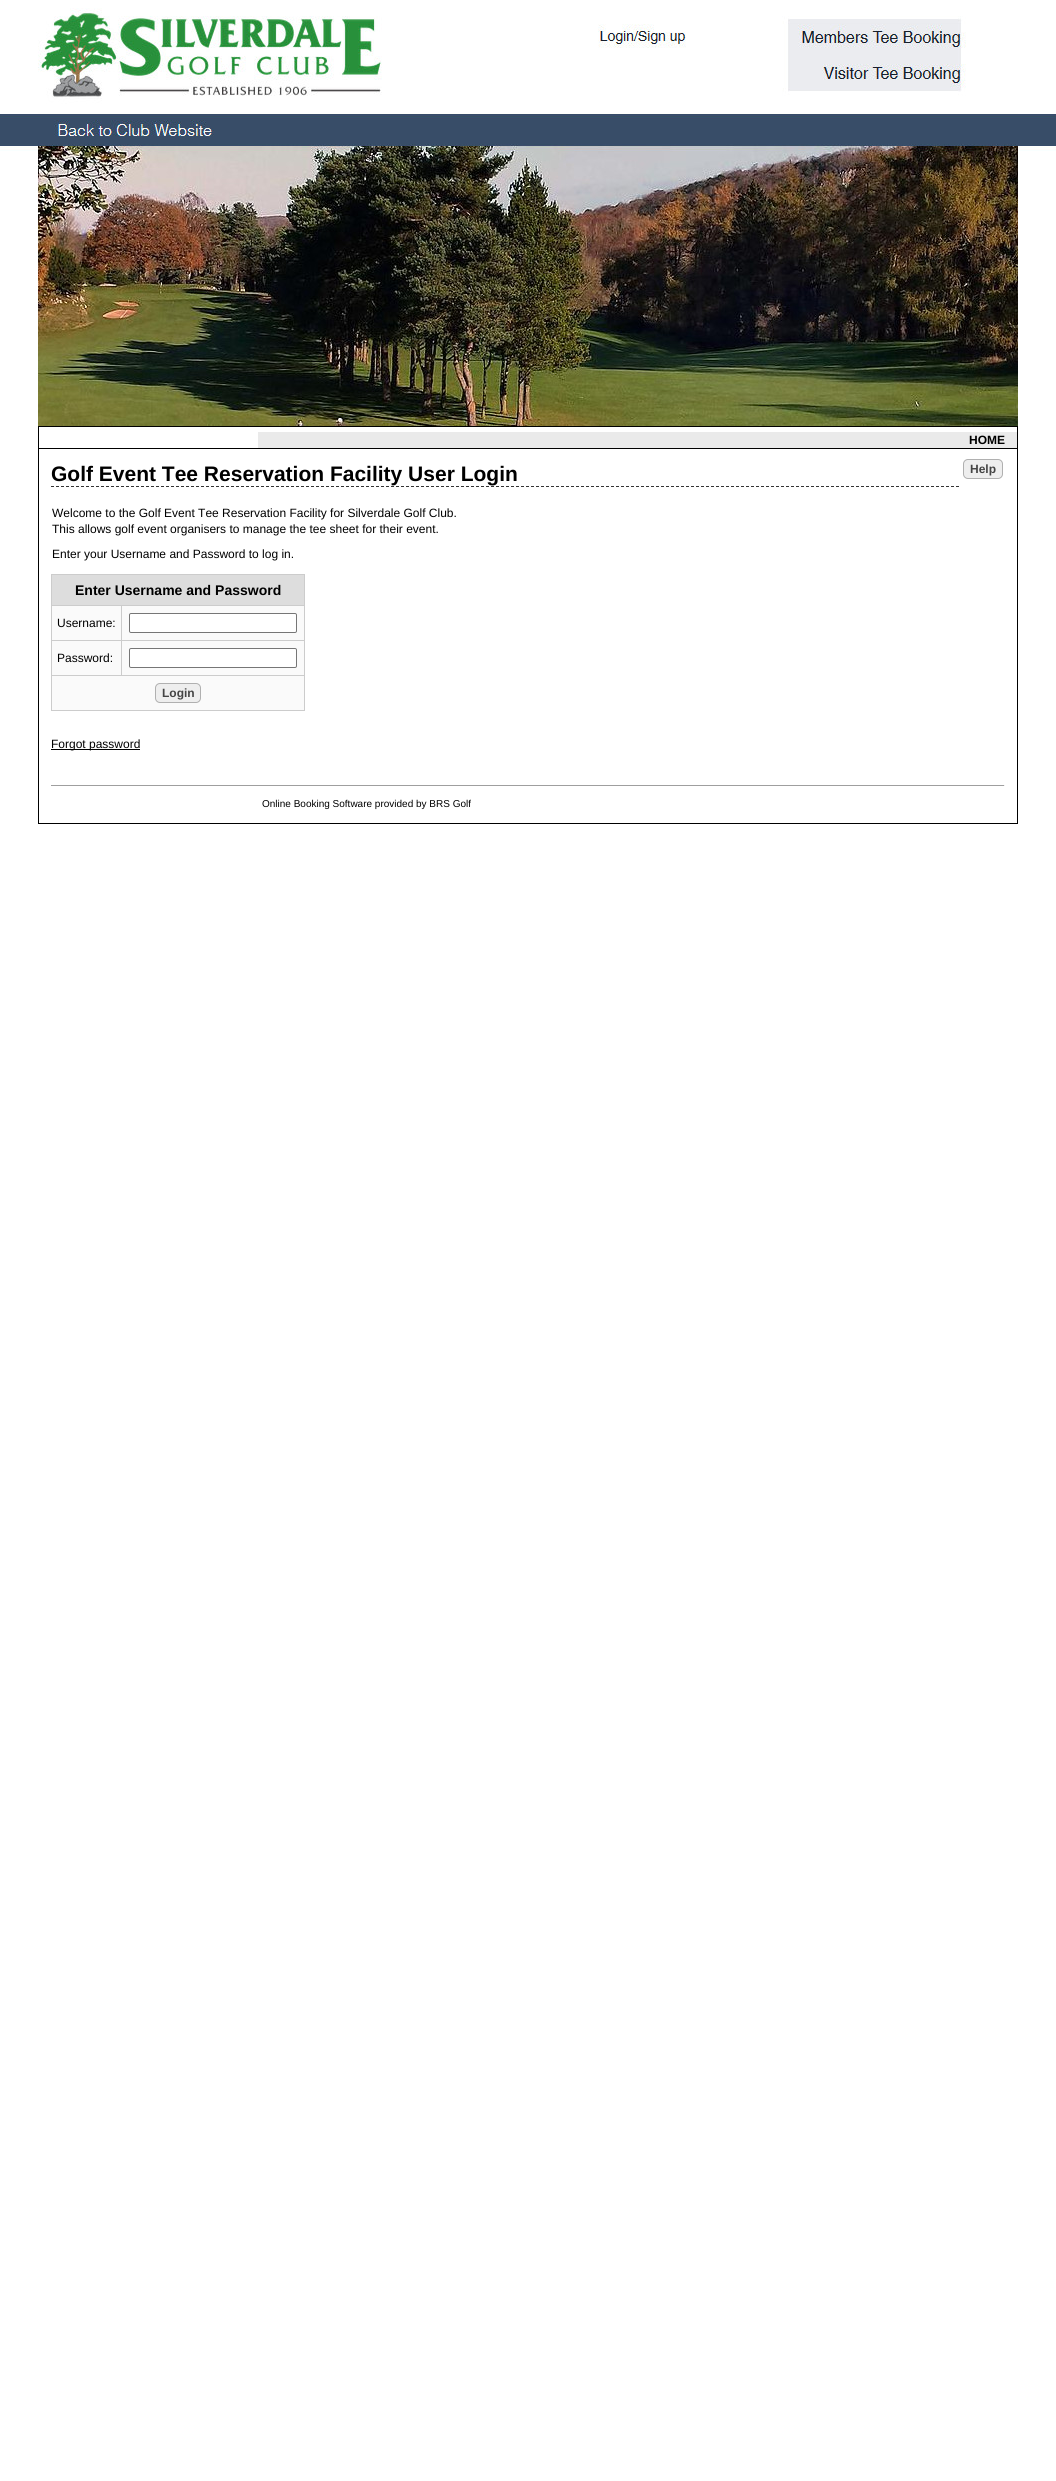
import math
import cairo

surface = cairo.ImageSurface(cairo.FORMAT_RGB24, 1056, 2481)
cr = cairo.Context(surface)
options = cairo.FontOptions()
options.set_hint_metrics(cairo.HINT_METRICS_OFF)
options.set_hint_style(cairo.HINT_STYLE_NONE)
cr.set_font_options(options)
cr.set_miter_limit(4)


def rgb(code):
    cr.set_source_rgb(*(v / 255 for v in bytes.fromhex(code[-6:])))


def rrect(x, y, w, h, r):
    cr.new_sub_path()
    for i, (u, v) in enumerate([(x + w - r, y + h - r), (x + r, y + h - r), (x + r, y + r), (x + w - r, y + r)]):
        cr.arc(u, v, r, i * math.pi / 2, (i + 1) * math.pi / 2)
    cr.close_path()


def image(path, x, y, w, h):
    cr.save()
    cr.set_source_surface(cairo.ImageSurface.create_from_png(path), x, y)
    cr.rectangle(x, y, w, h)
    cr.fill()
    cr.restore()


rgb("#ffffff")
cr.paint()
image("img/1.png", 0, 114, 1056, 37)
image("img/2.png", 38, 8, 980, 418)
for x, y, w, h, color in [
    (38, 426, 980, 1, "#000000"),
    (1017, 426, 1, 22, "#000000"),
    (38, 426, 1, 22, "#000000"),
    (258, 432, 759, 16, "#eaeaea"),
]:
    rgb(color)
    cr.rectangle(x, y, w, h)
    cr.fill()
cr.rectangle(38.5, 448.5, 979, 375)
rgb("#000000")
cr.set_line_width(1)
cr.stroke()
cr.new_path()
cr.move_to(51, 486.5)
cr.line_to(959, 486.5)
rgb("#333333")
cr.set_dash([3, 2])
cr.stroke()
rgb("#eeeeee")
rrect(963.5, 459.5, 39, 19, 4.5)
cr.fill_preserve()
rgb("#b0b0b0")
cr.set_dash([])
cr.stroke()
for x, y, w, h, color in [
    (51, 574, 254, 137, "#cccccc"),
    (52, 575, 252, 30, "#dddddd"),
    (52, 606, 69, 34, "#fafafa"),
    (122, 606, 182, 34, "#fafafa"),
]:
    rgb(color)
    cr.rectangle(x, y, w, h)
    cr.fill()
rgb("#ffffff")
rrect(129.5, 613.5, 167, 19, 1.5)
cr.fill_preserve()
rgb("#767676")
cr.stroke()
rgb("#fafafa")
cr.rectangle(52, 641, 69, 34)
cr.fill()
cr.rectangle(122, 641, 182, 34)
cr.fill()
rgb("#ffffff")
rrect(129.5, 648.5, 167, 19, 1.5)
cr.fill_preserve()
rgb("#767676")
cr.stroke()
rgb("#fafafa")
cr.rectangle(52, 676, 252, 34)
cr.fill()
rgb("#eeeeee")
rrect(155.5, 683.5, 45, 19, 4.5)
cr.fill_preserve()
rgb("#b0b0b0")
cr.stroke()
for x, y, w, h, color in [
    (51, 749, 89, 1, "#000000"),
    (51, 785, 954, 1, "#9f9f9f"),
    (1004, 785, 1, 1, "#eeeeee"),
]:
    rgb(color)
    cr.rectangle(x, y, w, h)
    cr.fill()
cr.select_font_face("Liberation Sans", cairo.FONT_SLANT_NORMAL, cairo.FONT_WEIGHT_BOLD)
cr.set_font_size(12)
rgb("#000000")
cr.move_to(969, 444)
cr.show_text("HOME")
cr.set_font_size(21)
cr.move_to(51, 481)
cr.show_text("Golf Event Tee Reservation Facility User Login")
cr.set_font_size(12)
rgb("#444444")
cr.move_to(970, 473)
cr.show_text("Help")
cr.select_font_face("Liberation Sans")
rgb("#000000")
for x, y, s in [
    (52, 517, "Welcome to the Golf Event Tee Reservation Facility for Silverdale Golf Club."),
    (52, 533, "This allows golf event organisers to manage the tee sheet for their event."),
    (52, 558, "Enter your Username and Password to log in."),
]:
    cr.move_to(x, y)
    cr.show_text(s)
cr.select_font_face("Liberation Sans", cairo.FONT_SLANT_NORMAL, cairo.FONT_WEIGHT_BOLD)
cr.set_font_size(14)
cr.move_to(75, 595)
cr.show_text("Enter Username and Password")
cr.select_font_face("Liberation Sans")
cr.set_font_size(12)
cr.move_to(57, 627)
cr.show_text("Username:")
cr.move_to(57, 662)
cr.show_text("Password:")
cr.select_font_face("Liberation Sans", cairo.FONT_SLANT_NORMAL, cairo.FONT_WEIGHT_BOLD)
rgb("#444444")
cr.move_to(162, 697)
cr.show_text("Login")
cr.select_font_face("Liberation Sans")
rgb("#000000")
cr.move_to(51, 748)
cr.show_text("Forgot password")
cr.set_font_size(10)
cr.move_to(262, 807)
cr.show_text("Online Booking Software provided by BRS Golf")
surface.write_to_png("page.png")
